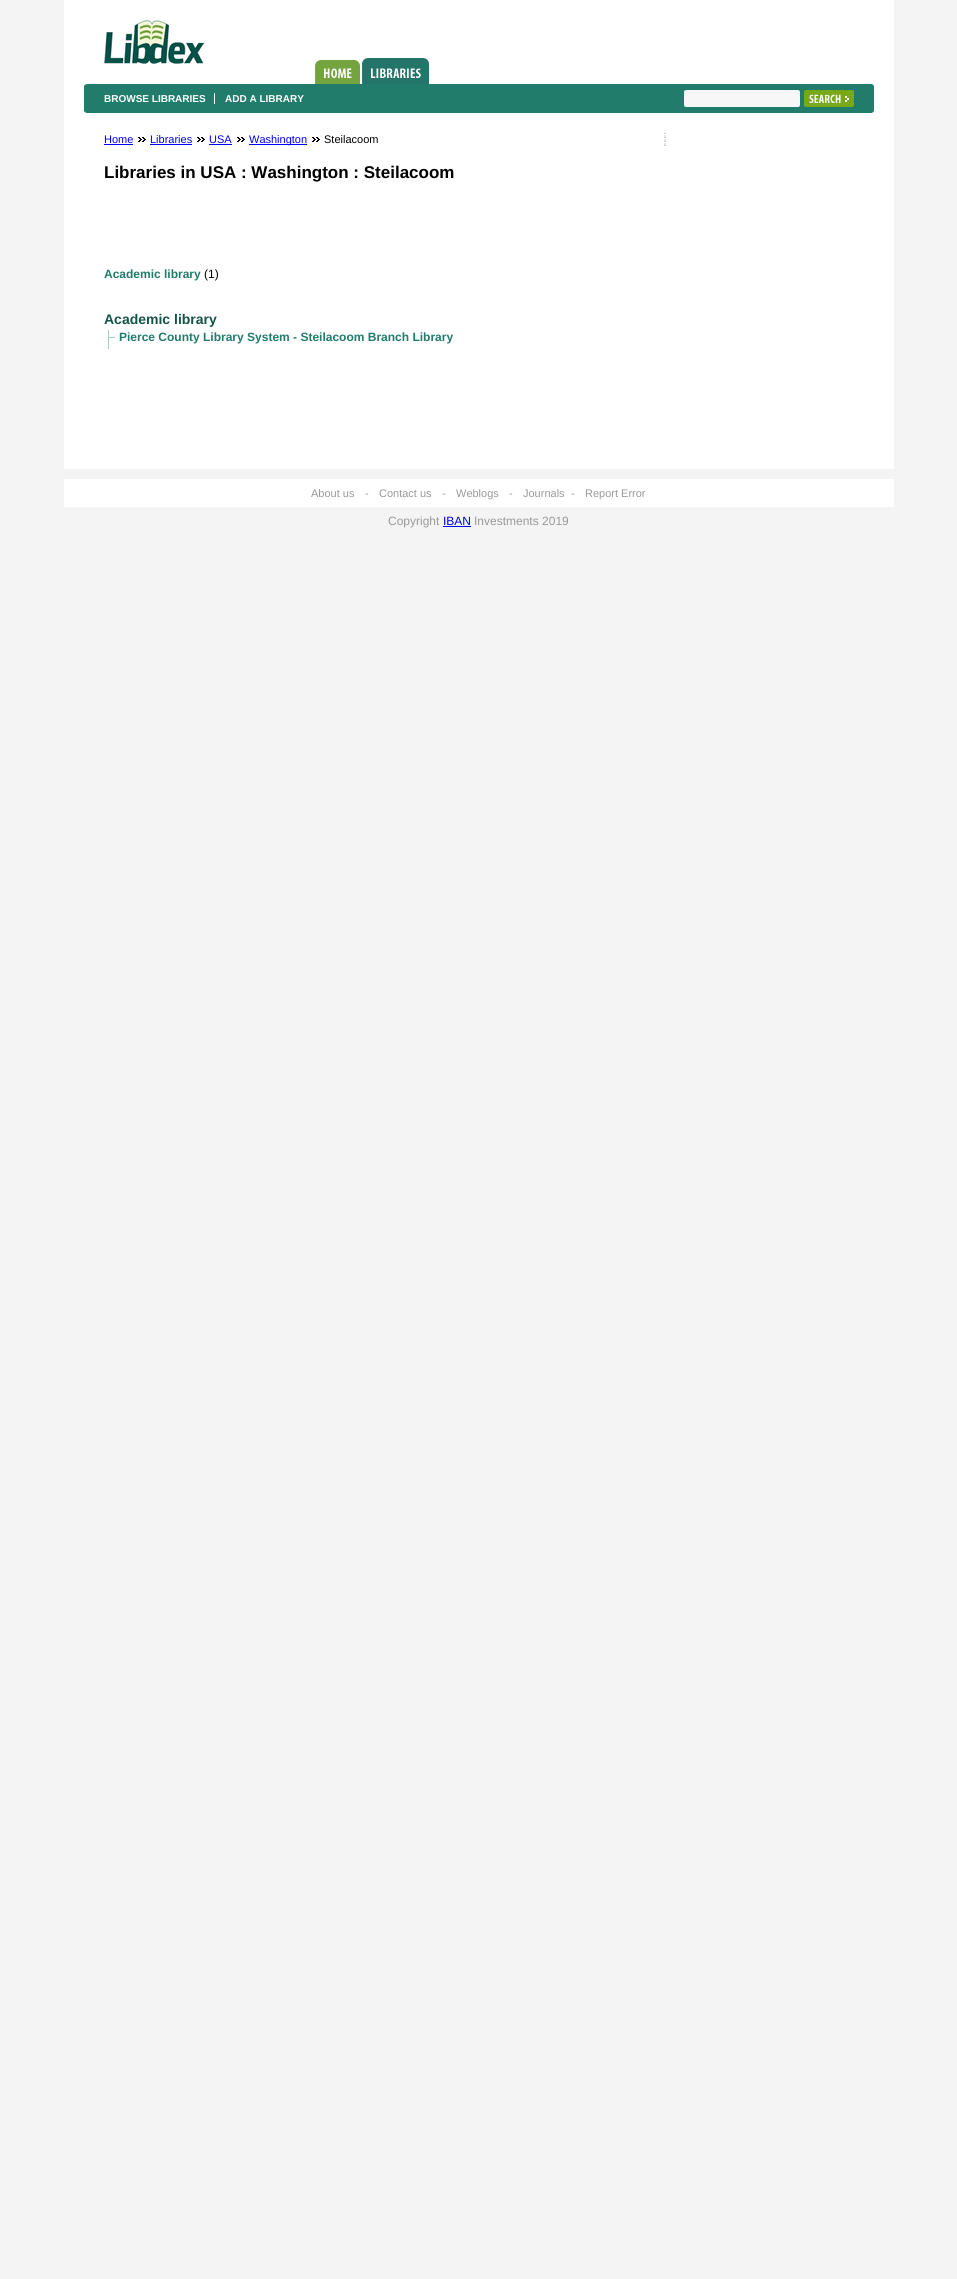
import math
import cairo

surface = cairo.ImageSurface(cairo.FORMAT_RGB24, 957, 2279)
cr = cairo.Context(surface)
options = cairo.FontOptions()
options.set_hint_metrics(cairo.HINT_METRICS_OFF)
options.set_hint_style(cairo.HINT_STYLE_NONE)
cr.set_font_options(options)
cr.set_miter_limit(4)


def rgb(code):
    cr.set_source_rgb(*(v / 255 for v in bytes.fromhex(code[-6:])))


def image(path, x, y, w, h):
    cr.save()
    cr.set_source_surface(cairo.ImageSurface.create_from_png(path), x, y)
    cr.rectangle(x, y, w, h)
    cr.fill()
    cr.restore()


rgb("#f4f4f4")
cr.paint()
rgb("#ffffff")
cr.rectangle(64, 0, 830, 469)
cr.fill()
image("img/1.png", 104, 20, 100, 44)
image("img/2.png", 315, 60, 45, 24)
image("img/3.png", 362, 58, 67, 26)
rgb("#217c6b")
cr.rectangle(94, 84, 778, 29)
cr.fill()
image("img/4.png", 84, 84, 10, 29)
rgb("#ffffff")
cr.rectangle(214, 93, 1, 11)
cr.fill()
image("img/5.png", 872, 84, 2, 29)
image("img/6.png", 684, 90, 116, 17)
rgb("#f7f7f7")
cr.rectangle(797, 90, 1, 14)
cr.fill()
image("img/7.png", 804, 90, 50, 17)
rgb("#0000ff")
cr.rectangle(104, 144, 29, 1)
cr.fill()
image("img/8.png", 138, 137, 8, 5)
cr.rectangle(150, 144, 42, 1)
cr.fill()
image("img/8.png", 197, 137, 8, 5)
cr.rectangle(209, 144, 23, 1)
cr.fill()
image("img/8.png", 237, 137, 8, 5)
cr.rectangle(249, 144, 58, 1)
cr.fill()
image("img/8.png", 312, 137, 8, 5)
rgb("#a6cdbe")
cr.rectangle(108, 330, 1, 19)
cr.fill()
cr.rectangle(109, 337, 6, 1)
cr.fill()
image("img/9.png", 664, 133, 2, 13)
rgb("#ffffff")
cr.rectangle(64, 479, 830, 28)
cr.fill()
rgb("#0000ee")
cr.rectangle(443, 526, 28, 1)
cr.fill()
cr.select_font_face("Liberation Sans", cairo.FONT_SLANT_NORMAL, cairo.FONT_WEIGHT_BOLD)
cr.set_font_size(10)
rgb("#ffffff")
cr.move_to(104, 102)
cr.show_text("BROWSE LIBRARIES")
cr.move_to(225, 102)
cr.show_text("ADD A LIBRARY")
cr.select_font_face("Liberation Sans")
cr.set_font_size(11)
rgb("#0000ff")
for x, y, s in [
    (104, 143, "Home"),
    (150, 143, "Libraries"),
    (209, 143, "USA"),
    (249, 143, "Washington"),
]:
    cr.move_to(x, y)
    cr.show_text(s)
rgb("#000000")
cr.move_to(324, 143)
cr.show_text("Steilacoom")
cr.select_font_face("Liberation Sans", cairo.FONT_SLANT_NORMAL, cairo.FONT_WEIGHT_BOLD)
cr.set_font_size(17)
cr.move_to(104, 178)
cr.show_text("Libraries in USA : Washington : Steilacoom")
cr.set_font_size(12)
rgb("#217c6b")
cr.move_to(104, 278)
cr.show_text("Academic library")
cr.select_font_face("Liberation Sans")
rgb("#000000")
cr.move_to(204, 278)
cr.show_text("(1)")
cr.select_font_face("Liberation Sans", cairo.FONT_SLANT_NORMAL, cairo.FONT_WEIGHT_BOLD)
cr.set_font_size(14)
rgb("#155448")
cr.move_to(104, 324)
cr.show_text("Academic library")
cr.set_font_size(12)
rgb("#217c6b")
cr.move_to(119, 341)
cr.show_text("Pierce County Library System - Steilacoom Branch Library")
cr.select_font_face("Liberation Sans")
cr.set_font_size(11)
rgb("#999999")
for x, y, s in [
    (311, 497, "About us"),
    (365, 497, "-"),
    (379, 497, "Contact us"),
    (442, 497, "-"),
    (456, 497, "Weblogs"),
    (509, 497, "-"),
    (523, 497, "Journals"),
    (571, 497, "-"),
    (585, 497, "Report Error"),
]:
    cr.move_to(x, y)
    cr.show_text(s)
cr.set_font_size(12)
cr.move_to(388, 525)
cr.show_text("Copyright")
rgb("#0000ee")
cr.move_to(443, 525)
cr.show_text("IBAN")
rgb("#999999")
cr.move_to(474, 525)
cr.show_text("Investments 2019")
surface.write_to_png("page.png")
